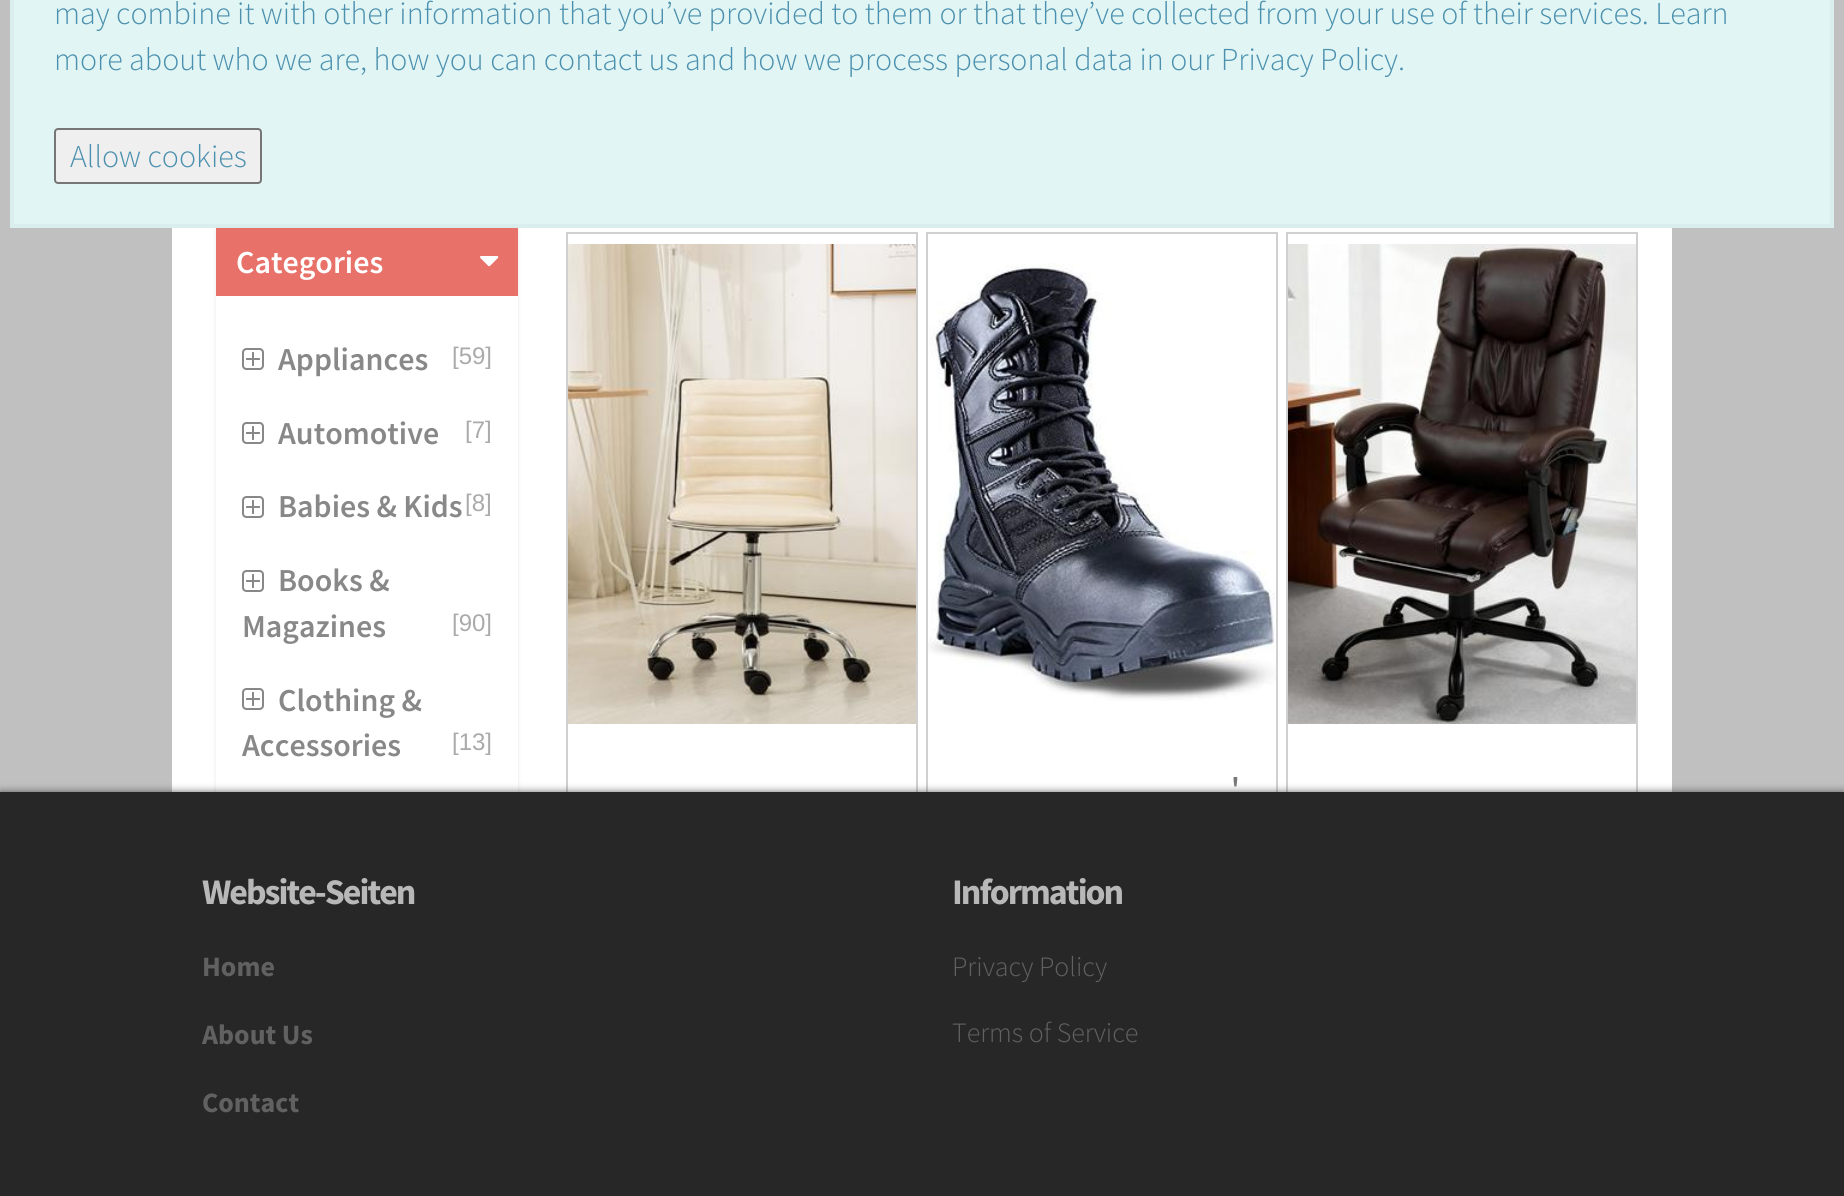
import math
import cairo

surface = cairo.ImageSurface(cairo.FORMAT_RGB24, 1844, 1196)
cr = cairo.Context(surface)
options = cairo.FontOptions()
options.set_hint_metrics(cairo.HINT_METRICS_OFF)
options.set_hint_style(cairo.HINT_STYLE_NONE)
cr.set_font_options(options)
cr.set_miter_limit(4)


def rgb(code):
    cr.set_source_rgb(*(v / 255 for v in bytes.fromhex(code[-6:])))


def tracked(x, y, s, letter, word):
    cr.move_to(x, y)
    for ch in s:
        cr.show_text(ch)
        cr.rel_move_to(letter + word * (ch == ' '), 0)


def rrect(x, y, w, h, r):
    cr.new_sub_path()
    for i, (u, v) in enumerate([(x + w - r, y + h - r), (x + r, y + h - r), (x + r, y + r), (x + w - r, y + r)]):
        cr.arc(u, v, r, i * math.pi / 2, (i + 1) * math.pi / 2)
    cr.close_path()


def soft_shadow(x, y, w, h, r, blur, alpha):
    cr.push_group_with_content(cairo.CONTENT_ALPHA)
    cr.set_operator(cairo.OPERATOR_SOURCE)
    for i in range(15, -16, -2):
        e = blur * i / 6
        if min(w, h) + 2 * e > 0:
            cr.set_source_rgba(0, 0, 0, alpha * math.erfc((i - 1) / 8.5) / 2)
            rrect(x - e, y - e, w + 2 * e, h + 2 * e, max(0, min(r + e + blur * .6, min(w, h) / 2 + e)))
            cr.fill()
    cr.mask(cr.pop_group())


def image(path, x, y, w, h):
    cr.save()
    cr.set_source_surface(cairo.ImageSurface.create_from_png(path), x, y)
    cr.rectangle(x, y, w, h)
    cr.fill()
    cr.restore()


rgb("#c0c0c0")
cr.paint()
rgb("#e1f5f4")
cr.rectangle(12, -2, 1820, 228)
cr.fill_preserve()
rgb("#daeeed")
cr.set_line_width(4)
cr.stroke()
rgb("#efefef")
rrect(55, 129, 206, 54, 3)
cr.fill_preserve()
rgb("#767676")
cr.set_line_width(2)
cr.stroke()
rgb("#ffffff")
cr.rectangle(172, 228, 1500, 564)
cr.fill()
cr.save()
cr.set_fill_rule(cairo.FILL_RULE_EVEN_ODD)
cr.new_path()
cr.move_to(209, 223)
cr.line_to(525, 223)
cr.line_to(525, 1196)
cr.line_to(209, 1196)
cr.close_path()
cr.move_to(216, 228)
cr.line_to(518, 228)
cr.line_to(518, 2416)
cr.line_to(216, 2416)
cr.close_path()
cr.clip()
rgb("#000000")
soft_shadow(216, 230, 302, 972, 0, 2, 0.1)
cr.restore()
rgb("#e87169")
cr.rectangle(216, 228, 302, 68)
cr.fill()
image("img/1.png", 480, 256, 19, 11)
image("img/2.png", 242, 348, 22, 22)
image("img/2.png", 242, 422, 22, 22)
image("img/2.png", 242, 496, 22, 22)
image("img/2.png", 242, 570, 22, 22)
image("img/2.png", 242, 688, 22, 22)
cr.rectangle(567, 233, 350, 798)
rgb("#d0d0d0")
cr.stroke()
image("img/3.png", 568, 244, 348, 480)
cr.rectangle(927, 233, 350, 798)
cr.stroke()
image("img/4.png", 928, 263, 348, 438)
cr.rectangle(1287, 233, 350, 798)
cr.stroke()
image("img/5.png", 1288, 244, 348, 480)
rgb("#323232")
soft_shadow(0, 792, 1844, 404, 0, 4, 0.75)
rgb("#272727")
cr.rectangle(0, 792, 1844, 404)
cr.fill()
cr.select_font_face("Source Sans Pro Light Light")
cr.set_font_size(32)
rgb("#4b90ae")
for x, y, s in [
    (54, 24, "may combine it with other information that you’ve provided to them or that they’ve collected from your use of their services. Learn"),
    (54, 70, "more about who we are, how you can contact us and how we process personal data in our Privacy Policy."),
    (70, 167, "Allow cookies"),
]:
    cr.move_to(x, y)
    cr.show_text(s)
cr.select_font_face("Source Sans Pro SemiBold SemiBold")
rgb("#ffffff")
cr.move_to(236, 273)
cr.show_text("Categories")
rgb("#888888")
cr.move_to(278, 370)
cr.show_text("Appliances")
cr.select_font_face("Liberation Sans")
cr.set_font_size(24)
rgb("#aaaaaa")
cr.move_to(452, 364)
cr.show_text("[59]")
cr.select_font_face("Source Sans Pro SemiBold SemiBold")
cr.set_font_size(32)
rgb("#888888")
cr.move_to(278, 444)
cr.show_text("Automotive")
cr.select_font_face("Liberation Sans")
cr.set_font_size(24)
rgb("#aaaaaa")
cr.move_to(465, 438)
cr.show_text("[7]")
cr.select_font_face("Source Sans Pro SemiBold SemiBold")
cr.set_font_size(32)
rgb("#888888")
cr.move_to(278, 517)
cr.show_text("Babies & Kids")
cr.select_font_face("Liberation Sans")
cr.set_font_size(24)
rgb("#aaaaaa")
cr.move_to(465, 511)
cr.show_text("[8]")
cr.select_font_face("Source Sans Pro SemiBold SemiBold")
cr.set_font_size(32)
rgb("#888888")
cr.move_to(278, 591)
cr.show_text("Books &")
cr.move_to(242, 637)
cr.show_text("Magazines")
cr.select_font_face("Liberation Sans")
cr.set_font_size(24)
rgb("#aaaaaa")
cr.move_to(452, 631)
cr.show_text("[90]")
cr.select_font_face("Source Sans Pro SemiBold SemiBold")
cr.set_font_size(32)
rgb("#888888")
cr.move_to(278, 711)
cr.show_text("Clothing &")
cr.move_to(242, 756)
cr.show_text("Accessories")
cr.select_font_face("Liberation Sans")
cr.set_font_size(24)
rgb("#aaaaaa")
cr.move_to(452, 750)
cr.show_text("[13]")
cr.select_font_face("Source Sans Pro SemiBold SemiBold")
cr.set_font_size(32)
rgb("#777777")
cr.move_to(1231, 799)
cr.show_text("'")
cr.select_font_face("Source Sans Pro", cairo.FONT_SLANT_NORMAL, cairo.FONT_WEIGHT_BOLD)
cr.set_font_size(36)
rgb("#b8b8b8")
tracked(202, 904, "Website-Seiten", -2, 0)
cr.set_font_size(28)
rgb("#616161")
for x, y, s in [
    (202, 976, "Home"),
    (202, 1044, "About Us"),
    (202, 1112, "Contact"),
]:
    cr.move_to(x, y)
    cr.show_text(s)
cr.set_font_size(36)
rgb("#b8b8b8")
tracked(952, 904, "Information", -2, 0)
cr.select_font_face("Source Sans Pro Light Light")
cr.set_font_size(28)
rgb("#616161")
cr.move_to(952, 976)
cr.show_text("Privacy Policy")
cr.move_to(952, 1042)
cr.show_text("Terms of Service")
surface.write_to_png("page.png")
